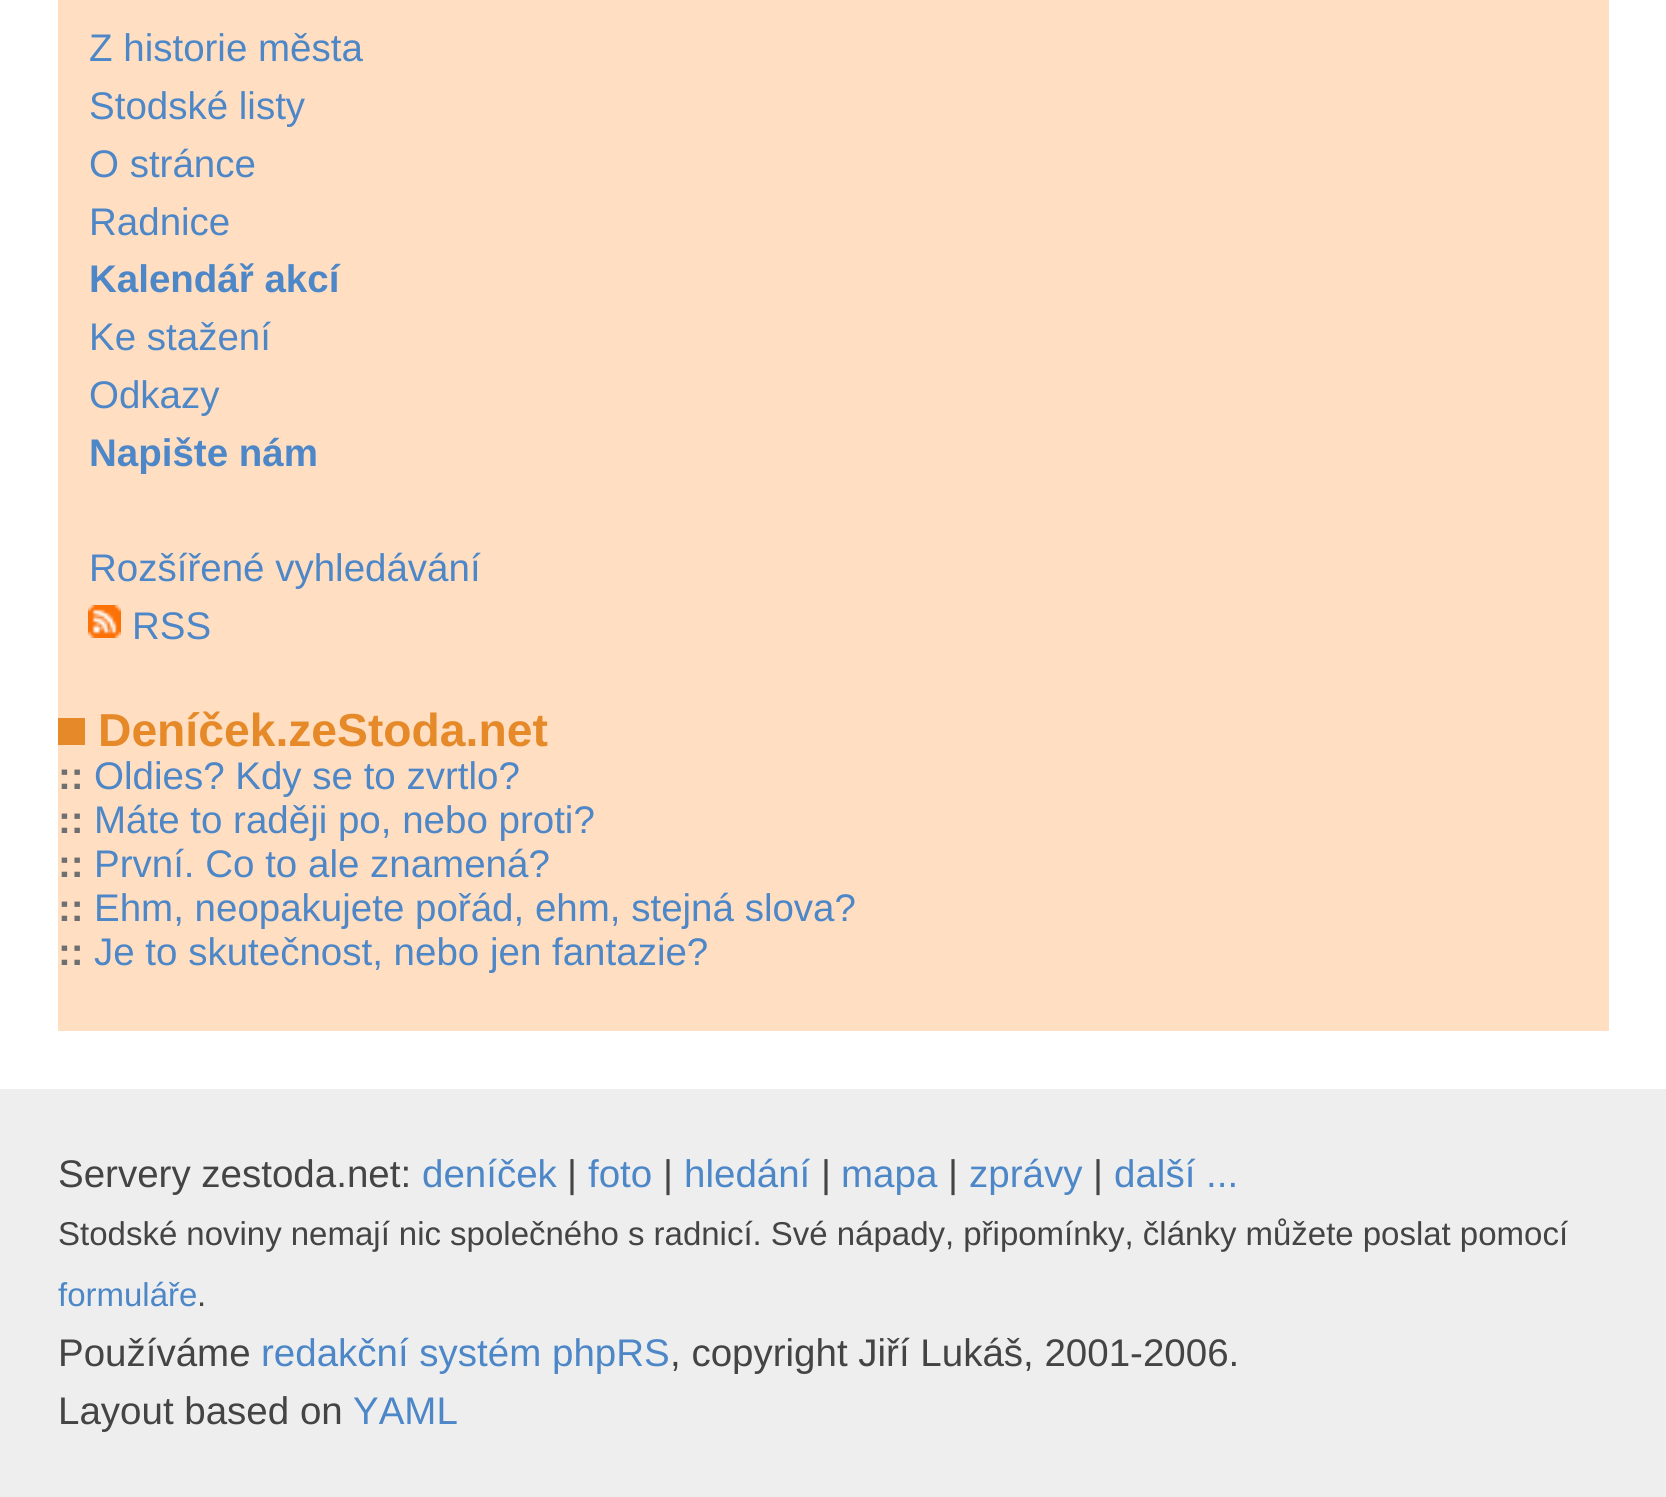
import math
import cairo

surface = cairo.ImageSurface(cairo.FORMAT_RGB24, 1666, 1497)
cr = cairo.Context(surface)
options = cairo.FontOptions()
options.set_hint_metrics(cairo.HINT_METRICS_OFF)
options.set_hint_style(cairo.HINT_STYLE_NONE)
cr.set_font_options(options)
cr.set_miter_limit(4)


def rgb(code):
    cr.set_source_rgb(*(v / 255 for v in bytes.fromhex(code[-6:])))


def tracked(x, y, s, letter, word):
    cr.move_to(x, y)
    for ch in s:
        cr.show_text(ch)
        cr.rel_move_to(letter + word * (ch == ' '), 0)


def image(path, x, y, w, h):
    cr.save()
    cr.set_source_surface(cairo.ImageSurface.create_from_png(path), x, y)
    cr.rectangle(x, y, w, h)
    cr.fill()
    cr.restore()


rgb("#ffffff")
cr.paint()
rgb("#ffdec2")
cr.rectangle(58, 0, 1551, 1031)
cr.fill()
image("img/1.png", 88, 605, 33, 33)
rgb("#e68929")
cr.rectangle(58, 718, 27, 27)
cr.fill()
rgb("#eeeeee")
cr.rectangle(0, 1089, 1666, 408)
cr.fill()
cr.select_font_face("Liberation Sans")
cr.set_font_size(38.5)
rgb("#4d87c7")
for x, y, s in [
    (89, 61, "Z historie města"),
    (89, 119, "Stodské listy"),
    (89, 177, "O stránce"),
    (89, 235, "Radnice"),
]:
    cr.move_to(x, y)
    cr.show_text(s)
cr.select_font_face("Liberation Sans", cairo.FONT_SLANT_NORMAL, cairo.FONT_WEIGHT_BOLD)
cr.move_to(89, 292)
cr.show_text("Kalendář akcí")
cr.select_font_face("Liberation Sans")
cr.move_to(89, 350)
cr.show_text("Ke stažení")
cr.move_to(89, 408)
cr.show_text("Odkazy")
cr.select_font_face("Liberation Sans", cairo.FONT_SLANT_NORMAL, cairo.FONT_WEIGHT_BOLD)
cr.move_to(89, 466)
cr.show_text("Napište nám")
cr.select_font_face("Liberation Sans")
cr.move_to(89, 581)
cr.show_text("Rozšířené vyhledávání")
cr.move_to(132, 639)
cr.show_text("RSS")
cr.select_font_face("Liberation Sans", cairo.FONT_SLANT_NORMAL, cairo.FONT_WEIGHT_BOLD)
cr.set_font_size(46.25)
rgb("#e68929")
cr.move_to(98, 746)
cr.show_text("Deníček.zeStoda.net")
cr.set_font_size(38.5)
rgb("#6d6f71")
cr.move_to(58, 789)
cr.show_text("::")
cr.select_font_face("Liberation Sans")
rgb("#4d87c7")
cr.move_to(94, 789)
cr.show_text("Oldies? Kdy se to zvrtlo?")
cr.select_font_face("Liberation Sans", cairo.FONT_SLANT_NORMAL, cairo.FONT_WEIGHT_BOLD)
rgb("#6d6f71")
cr.move_to(58, 833)
cr.show_text("::")
cr.select_font_face("Liberation Sans")
rgb("#4d87c7")
cr.move_to(94, 833)
cr.show_text("Máte to raději po, nebo proti?")
cr.select_font_face("Liberation Sans", cairo.FONT_SLANT_NORMAL, cairo.FONT_WEIGHT_BOLD)
rgb("#6d6f71")
cr.move_to(58, 877)
cr.show_text("::")
cr.select_font_face("Liberation Sans")
rgb("#4d87c7")
cr.move_to(94, 877)
cr.show_text("První. Co to ale znamená?")
cr.select_font_face("Liberation Sans", cairo.FONT_SLANT_NORMAL, cairo.FONT_WEIGHT_BOLD)
rgb("#6d6f71")
cr.move_to(58, 921)
cr.show_text("::")
cr.select_font_face("Liberation Sans")
rgb("#4d87c7")
cr.move_to(94, 921)
cr.show_text("Ehm, neopakujete pořád, ehm, stejná slova?")
cr.select_font_face("Liberation Sans", cairo.FONT_SLANT_NORMAL, cairo.FONT_WEIGHT_BOLD)
rgb("#6d6f71")
cr.move_to(58, 965)
cr.show_text("::")
cr.select_font_face("Liberation Sans")
rgb("#4d87c7")
cr.move_to(94, 965)
cr.show_text("Je to skutečnost, nebo jen fantazie?")
rgb("#444444")
cr.move_to(58, 1187)
cr.show_text("Servery zestoda.net:")
rgb("#4d87c7")
cr.move_to(422, 1187)
cr.show_text("deníček")
rgb("#444444")
cr.move_to(567, 1187)
cr.show_text("|")
rgb("#4d87c7")
cr.move_to(588, 1187)
cr.show_text("foto")
rgb("#444444")
cr.move_to(663, 1187)
cr.show_text("|")
rgb("#4d87c7")
cr.move_to(684, 1187)
cr.show_text("hledání")
rgb("#444444")
cr.move_to(821, 1187)
cr.show_text("|")
rgb("#4d87c7")
cr.move_to(841, 1187)
cr.show_text("mapa")
rgb("#444444")
cr.move_to(948, 1187)
cr.show_text("|")
rgb("#4d87c7")
cr.move_to(969, 1187)
cr.show_text("zprávy")
rgb("#444444")
cr.move_to(1093, 1187)
cr.show_text("|")
rgb("#4d87c7")
cr.move_to(1114, 1187)
cr.show_text("další ...")
cr.set_font_size(33)
rgb("#444444")
tracked(58, 1245, "Stodské noviny nemají nic společného s radnicí. Své nápady, připomínky, články můžete poslat pomocí", 0, -0.1)
rgb("#4d87c7")
cr.move_to(58, 1306)
cr.show_text("formuláře")
rgb("#444444")
cr.move_to(197, 1306)
cr.show_text(".")
cr.set_font_size(38.5)
cr.move_to(58, 1366)
cr.show_text("Používáme")
rgb("#4d87c7")
cr.move_to(261, 1366)
cr.show_text("redakční systém phpRS")
rgb("#444444")
cr.move_to(670, 1366)
cr.show_text(", copyright Jiří Lukáš, 2001-2006.")
cr.move_to(58, 1424)
cr.show_text("Layout based on")
rgb("#4d87c7")
cr.move_to(353, 1424)
cr.show_text("YAML")
surface.write_to_png("page.png")
